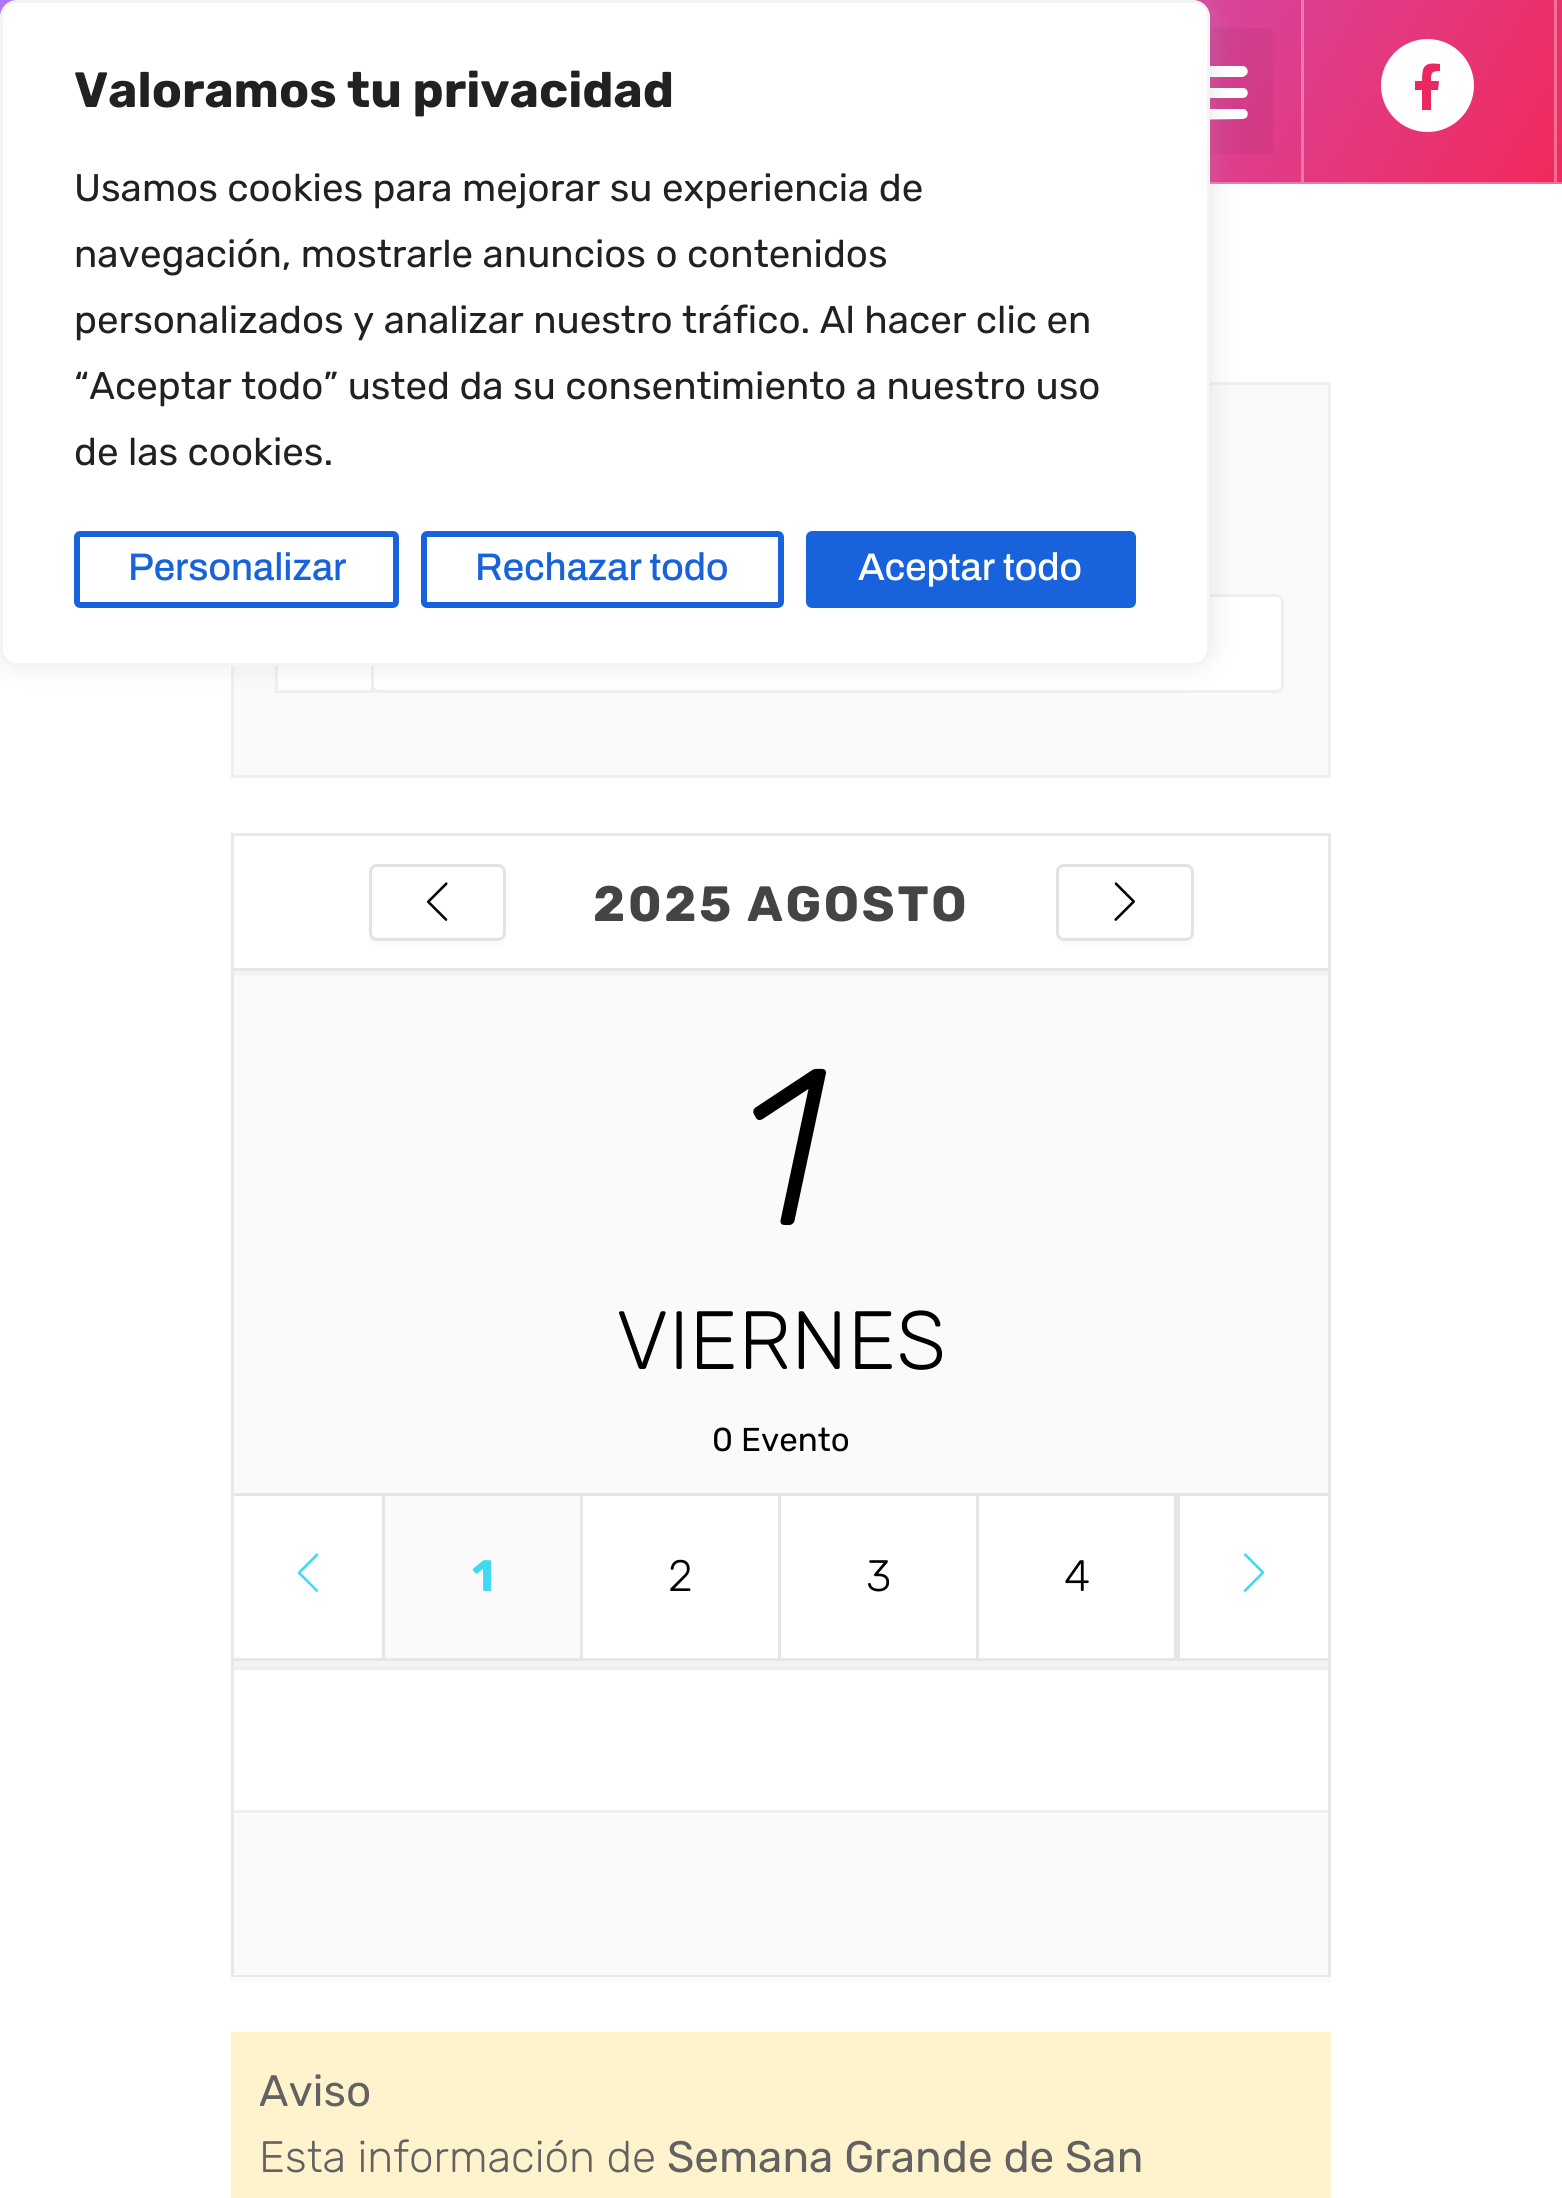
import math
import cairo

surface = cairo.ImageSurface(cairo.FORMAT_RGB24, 1562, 2198)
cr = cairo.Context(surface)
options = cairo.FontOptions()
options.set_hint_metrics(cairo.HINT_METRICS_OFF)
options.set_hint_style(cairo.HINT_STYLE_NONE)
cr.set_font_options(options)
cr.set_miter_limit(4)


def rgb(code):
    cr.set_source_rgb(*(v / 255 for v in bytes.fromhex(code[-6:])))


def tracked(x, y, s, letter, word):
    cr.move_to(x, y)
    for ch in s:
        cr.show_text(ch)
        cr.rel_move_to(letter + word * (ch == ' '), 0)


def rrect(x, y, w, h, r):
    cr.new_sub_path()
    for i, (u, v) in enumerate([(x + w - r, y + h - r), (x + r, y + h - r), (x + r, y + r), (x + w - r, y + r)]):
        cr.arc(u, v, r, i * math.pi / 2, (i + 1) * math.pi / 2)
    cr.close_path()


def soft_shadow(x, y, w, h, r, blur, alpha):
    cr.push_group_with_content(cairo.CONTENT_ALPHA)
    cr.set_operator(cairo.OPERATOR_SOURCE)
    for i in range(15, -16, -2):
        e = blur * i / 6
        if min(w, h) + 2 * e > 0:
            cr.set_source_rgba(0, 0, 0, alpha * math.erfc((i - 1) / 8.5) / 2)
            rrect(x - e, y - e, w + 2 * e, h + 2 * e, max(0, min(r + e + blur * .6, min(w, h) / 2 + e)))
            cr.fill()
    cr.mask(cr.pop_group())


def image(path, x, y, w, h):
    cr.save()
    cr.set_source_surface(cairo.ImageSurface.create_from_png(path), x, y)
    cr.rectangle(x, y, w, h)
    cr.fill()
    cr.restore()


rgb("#ffffff")
cr.paint()
gradient = cairo.LinearGradient(156, -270, 1406, 452)
gradient.add_color_stop_rgba(0.32, 0.69, 0.427, 1, 1)
gradient.add_color_stop_rgba(1, 0.949, 0.161, 0.357, 1)
cr.set_source(gradient)
cr.rectangle(0, 0, 1562, 182)
cr.fill()
gradient = cairo.LinearGradient(156, -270, 1406, 452)
gradient.add_color_stop_rgba(0.32, 0.784, 0.604, 1, 1)
gradient.add_color_stop_rgba(1, 0.965, 0.42, 0.557, 1)
cr.set_source(gradient)
cr.rectangle(1301, 0, 3, 182)
cr.fill()
cr.rectangle(1554, 0, 3, 182)
cr.fill()
gradient = cairo.LinearGradient(156, -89, 1406, 633)
gradient.add_color_stop_rgba(0.32, 0.784, 0.6, 1, 1)
gradient.add_color_stop_rgba(1, 0.965, 0.412, 0.549, 1)
cr.set_source(gradient)
cr.rectangle(1210, 182, 352, 2)
cr.fill()
cr.set_source_rgba(0, 0, 0, 0.05)
cr.rectangle(1210, 28, 63, 126)
cr.fill()
rgb("#ffffff")
cr.new_path()
cr.move_to(1175, 77)
cr.line_to(1243, 77)
cr.line_to(1246, 75)
cr.curve_to(1249, 73, 1248, 68, 1244, 66)
cr.line_to(1174, 66)
cr.curve_to(1168, 68, 1169, 77, 1175, 77)
cr.close_path()
cr.move_to(1175, 98)
cr.line_to(1243, 98)
cr.line_to(1246, 97)
cr.curve_to(1249, 94, 1248, 89, 1244, 88)
cr.line_to(1174, 88)
cr.curve_to(1168, 89, 1169, 98, 1175, 98)
cr.close_path()
cr.move_to(1175, 120)
cr.line_to(1243, 119)
cr.line_to(1246, 118)
cr.curve_to(1249, 115, 1248, 110, 1244, 109)
cr.line_to(1174, 109)
cr.curve_to(1168, 110, 1169, 120, 1175, 120)
cr.close_path()
cr.fill()
cr.arc(1427.5, 85.5, 46.5, 0, 2 * math.pi)
cr.fill()
rgb("#eb2960")
cr.new_path()
cr.move_to(1438, 90)
cr.line_to(1431, 90)
cr.line_to(1431, 110)
cr.line_to(1422, 110)
cr.line_to(1422, 90)
cr.line_to(1415, 90)
cr.line_to(1415, 81)
cr.line_to(1422, 81)
cr.curve_to(1422, 66, 1424, 62, 1440, 64)
cr.line_to(1440, 71)
cr.curve_to(1431, 71, 1431, 73, 1431, 81)
cr.line_to(1439, 81)
cr.close_path()
cr.fill()
rgb("#fafafa")
cr.rectangle(232.5, 383.5, 1097, 393)
cr.fill_preserve()
rgb("#efefef")
cr.set_line_width(3)
cr.stroke()
rgb("#ffffff")
cr.rectangle(278, 666, 93, 24)
cr.fill()
cr.rectangle(276.5, 595.5, 96, 96)
rgb("#efefef")
cr.stroke()
rgb("#ffffff")
rrect(372.5, 595.5, 910, 96, 6.5)
cr.fill_preserve()
rgb("#efefef")
cr.stroke()
rgb("#acabab")
soft_shadow(0, -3, 1210, 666, 17, 14, 0.3)
rgb("#ffffff")
rrect(1.5, 1.5, 1207, 663, 15.5)
cr.fill_preserve()
rgb("#f4f4f4")
cr.stroke()
rrect(77, 534, 319, 71, 3)
rgb("#1863dc")
cr.set_line_width(6)
cr.stroke()
rrect(424, 534, 357, 71, 3)
cr.stroke()
rrect(809, 534, 324, 71, 3)
cr.fill_preserve()
cr.stroke()
rgb("#fbfbfb")
cr.rectangle(231, 1977, 1100, 6)
cr.fill()
cr.rectangle(232.5, 834.5, 1097, 1141)
rgb("#e8e8e8")
cr.set_line_width(3)
cr.stroke()
rgb("#f4f4f4")
cr.rectangle(234, 971, 1094, 5)
cr.fill()
rgb("#fbfbfb")
cr.new_path()
cr.move_to(369, 935)
cr.line_to(369, 938)
cr.curve_to(369, 942, 373, 946, 377, 946)
cr.line_to(498, 946)
cr.curve_to(502, 946, 506, 942, 506, 938)
cr.line_to(506, 932)
cr.curve_to(506, 937, 502, 940, 498, 940)
cr.line_to(377, 940)
cr.curve_to(373, 940, 370, 938, 369, 935)
cr.close_path()
cr.fill()
rgb("#ffffff")
rrect(370.5, 865.5, 134, 74, 6.5)
cr.fill_preserve()
rgb("#e2e2e2")
cr.stroke()
image("img/1.png", 426, 882, 22, 39)
rgb("#e6e6e6")
cr.rectangle(234, 968, 1094, 3)
cr.fill()
rgb("#fbfbfb")
cr.new_path()
cr.move_to(1056, 932)
cr.line_to(1056, 938)
cr.curve_to(1056, 942, 1060, 946, 1064, 946)
cr.line_to(1186, 946)
cr.curve_to(1190, 946, 1194, 942, 1194, 938)
cr.line_to(1194, 877)
cr.line_to(1194, 874)
cr.line_to(1194, 932)
cr.curve_to(1194, 937, 1190, 940, 1185, 940)
cr.line_to(1064, 940)
cr.curve_to(1060, 940, 1056, 937, 1056, 932)
cr.close_path()
cr.fill()
rgb("#ffffff")
rrect(1057.5, 865.5, 135, 74, 6.5)
cr.fill_preserve()
rgb("#e2e2e2")
cr.stroke()
image("img/2.png", 1114, 882, 21, 39)
for x, y, w, h, color in [
    (234, 976, 1094, 517, "#fafafa"),
    (234, 1493, 1094, 3, "#e6e6e6"),
    (234, 1661, 1094, 6, "#f3f3f3"),
    (382, 1496, 3, 165, "#e6e6e6"),
    (234, 1658, 151, 3, "#e6e6e6"),
]:
    rgb(color)
    cr.rectangle(x, y, w, h)
    cr.fill()
image("img/3.png", 297, 1553, 22, 39)
for x, y, w, h, color in [
    (385, 1496, 195, 162, "#fafafa"),
    (580, 1496, 3, 165, "#e6e6e6"),
    (385, 1658, 198, 3, "#e6e6e6"),
    (778, 1496, 3, 165, "#e6e6e6"),
    (583, 1658, 198, 3, "#e6e6e6"),
    (976, 1496, 3, 165, "#e6e6e6"),
    (1177, 1658, 151, 3, "#e6e6e6"),
    (1174, 1496, 6, 165, "#e6e6e6"),
    (781, 1658, 396, 3, "#e6e6e6"),
]:
    rgb(color)
    cr.rectangle(x, y, w, h)
    cr.fill()
image("img/4.png", 1243, 1553, 22, 39)
for x, y, w, h, color in [
    (234, 1667, 1094, 3, "#efefef"),
    (234, 1813, 1094, 162, "#fafafa"),
    (234, 1810, 1094, 3, "#efefef"),
    (231, 2032, 1100, 166, "#fff3cd"),
]:
    rgb(color)
    cr.rectangle(x, y, w, h)
    cr.fill()
cr.select_font_face("Rubik", cairo.FONT_SLANT_NORMAL, cairo.FONT_WEIGHT_BOLD)
cr.set_font_size(49.5)
rgb("#212121")
cr.move_to(74, 107)
cr.show_text("Valoramos tu privacidad")
cr.select_font_face("Rubik")
cr.set_font_size(38.5)
for x, y, s in [
    (74, 201, "Usamos cookies para mejorar su experiencia de"),
    (74, 267, "navegación, mostrarle anuncios o contenidos"),
    (74, 333, "personalizados y analizar nuestro tráfico. Al hacer clic en"),
    (74, 399, "“Aceptar todo” usted da su consentimiento a nuestro uso"),
    (74, 465, "de las cookies."),
]:
    cr.move_to(x, y)
    cr.show_text(s)
cr.select_font_face("Archivo Medium")
rgb("#1863dc")
cr.move_to(128, 580)
cr.show_text("Personalizar")
cr.move_to(475, 580)
cr.show_text("Rechazar todo")
rgb("#ffffff")
cr.move_to(858, 580)
cr.show_text("Aceptar todo")
cr.select_font_face("Rubik", cairo.FONT_SLANT_NORMAL, cairo.FONT_WEIGHT_BOLD)
cr.set_font_size(49.5)
rgb("#444444")
tracked(593, 921, "2025 AGOSTO", 2.75, 0)
cr.select_font_face("Rubik Light", cairo.FONT_SLANT_ITALIC)
cr.set_font_size(223)
rgb("#000000")
tracked(738, 1225, "1", -1, 0)
cr.select_font_face("Rubik Light")
cr.set_font_size(82.5)
cr.move_to(616, 1369)
cr.show_text("VIERNES")
cr.select_font_face("Rubik")
cr.set_font_size(33)
cr.move_to(712, 1451)
cr.show_text("0 Evento")
cr.select_font_face("Rubik", cairo.FONT_SLANT_NORMAL, cairo.FONT_WEIGHT_BOLD)
cr.set_font_size(44)
rgb("#40d9f1")
cr.move_to(472, 1591)
cr.show_text("1")
cr.select_font_face("Rubik Light")
rgb("#000000")
for x, y, s in [
    (668, 1591, "2"),
    (866, 1591, "3"),
    (1064, 1591, "4"),
]:
    cr.move_to(x, y)
    cr.show_text(s)
cr.select_font_face("Rubik")
rgb("#626262")
cr.move_to(259, 2106)
cr.show_text("Aviso")
cr.select_font_face("Rubik Light")
cr.move_to(259, 2172)
cr.show_text("Esta información de")
cr.select_font_face("Rubik")
cr.move_to(667, 2172)
cr.show_text("Semana Grande de San")
surface.write_to_png("page.png")
